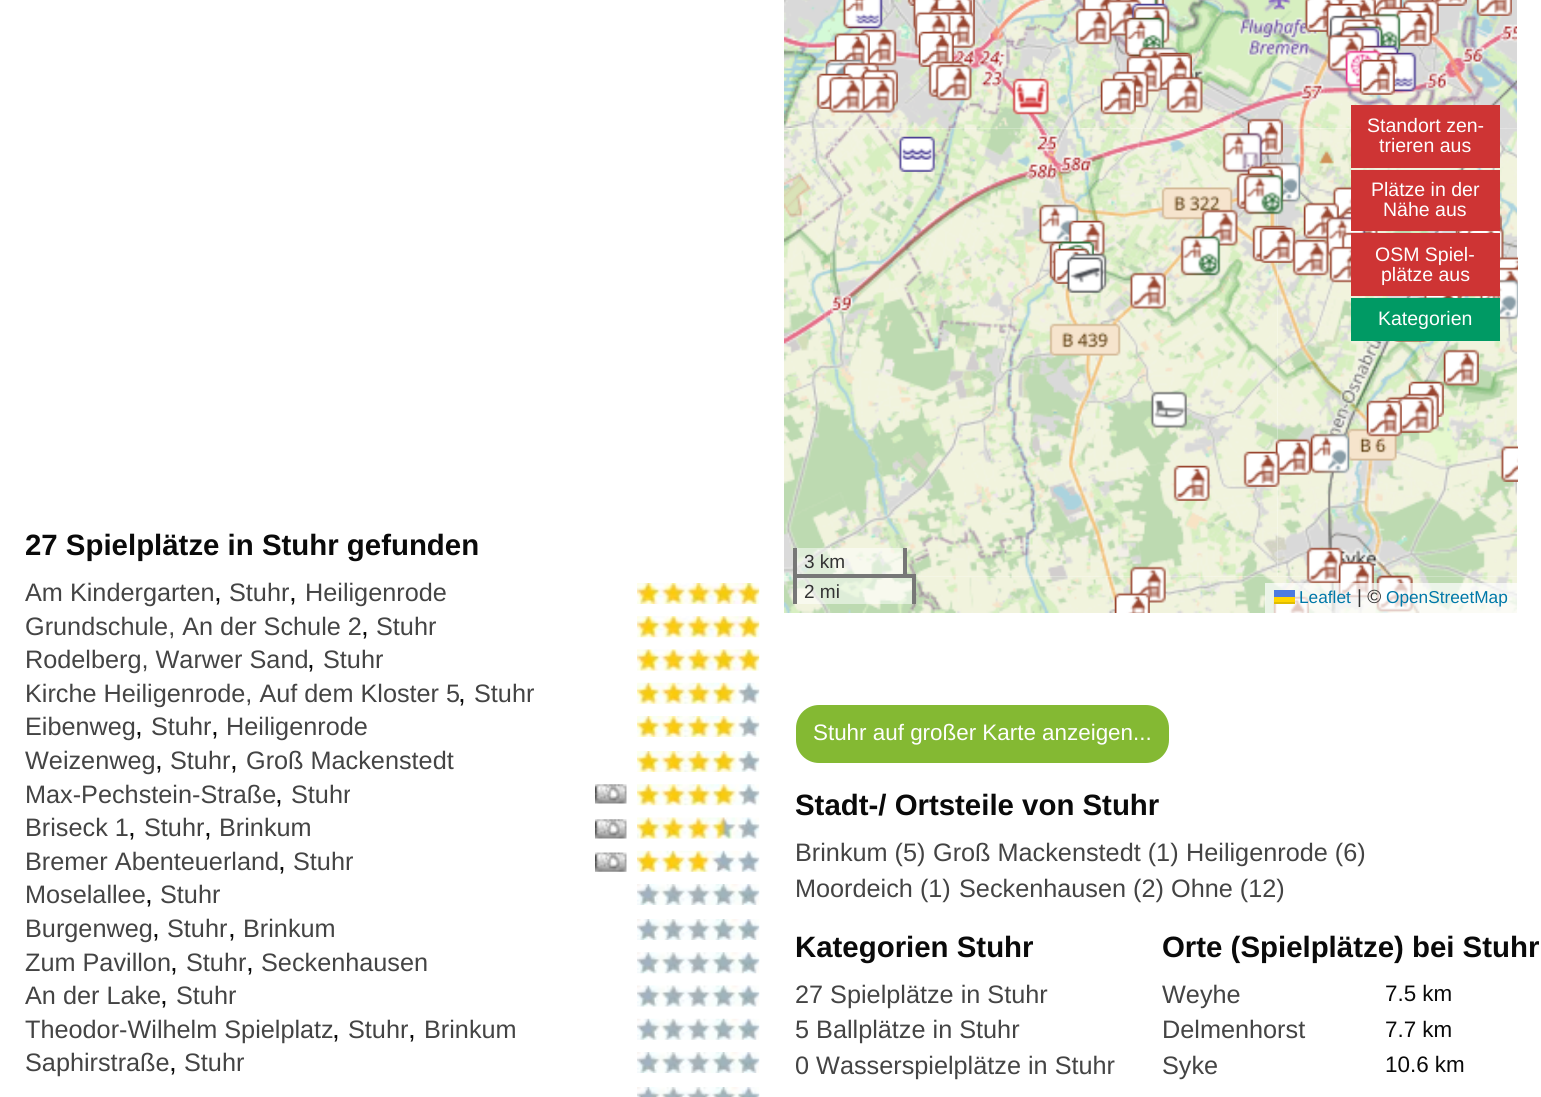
import math
import cairo

surface = cairo.ImageSurface(cairo.FORMAT_RGB24, 1541, 1097)
cr = cairo.Context(surface)
options = cairo.FontOptions()
options.set_hint_metrics(cairo.HINT_METRICS_OFF)
options.set_hint_style(cairo.HINT_STYLE_NONE)
cr.set_font_options(options)
cr.set_miter_limit(4)


def rgb(code):
    cr.set_source_rgb(*(v / 255 for v in bytes.fromhex(code[-6:])))


def rrect(x, y, w, h, r):
    cr.new_sub_path()
    for i, (u, v) in enumerate([(x + w - r, y + h - r), (x + r, y + h - r), (x + r, y + r), (x + w - r, y + r)]):
        cr.arc(u, v, r, i * math.pi / 2, (i + 1) * math.pi / 2)
    cr.close_path()


def image(path, x, y, w, h):
    cr.save()
    cr.set_source_surface(cairo.ImageSurface.create_from_png(path), x, y)
    cr.rectangle(x, y, w, h)
    cr.fill()
    cr.restore()


rgb("#ffffff")
cr.paint()
image("img/1.png", 637, 583, 123, 21)
image("img/2.png", 637, 616, 123, 22)
image("img/3.png", 637, 649, 123, 22)
image("img/4.png", 637, 682, 123, 22)
image("img/5.png", 637, 716, 123, 21)
image("img/5.png", 637, 751, 123, 21)
image("img/6.png", 595, 784, 32, 20)
image("img/7.png", 637, 784, 123, 22)
image("img/6.png", 595, 819, 32, 20)
image("img/8.png", 637, 817, 123, 22)
image("img/9.png", 595, 852, 32, 20)
image("img/10.png", 637, 850, 123, 22)
image("img/11.png", 637, 884, 123, 21)
image("img/11.png", 637, 919, 123, 21)
image("img/12.png", 637, 952, 123, 22)
image("img/13.png", 637, 985, 123, 22)
image("img/14.png", 637, 1018, 123, 22)
image("img/11.png", 637, 1052, 123, 21)
image("img/15.png", 637, 1087, 123, 10)
image("img/17.png", 830, 0, 448, 128)
image("img/18.png", 1277, 0, 240, 128)
image("img/20.png", 829, 128, 449, 448)
image("img/21.png", 1277, 128, 240, 448)
rgb("#ce3434")
cr.rectangle(1351, 105, 149, 63)
cr.fill()
image("img/91.png", 1332, 186, 19, 32)
image("img/92.png", 1341, 211, 37, 22)
image("img/93.png", 1499, 213, 3, 21)
image("img/90.png", 1303, 202, 36, 37)
image("img/96.png", 1325, 216, 41, 41)
image("img/98.png", 1455, 231, 7, 2)
image("img/101.png", 1460, 231, 2, 1)
image("img/100.png", 1457, 231, 15, 2)
image("img/99.png", 1467, 227, 37, 34)
cr.rectangle(1351, 170, 149, 61)
cr.fill()
image("img/105.png", 1341, 232, 35, 16)
image("img/111.png", 1500, 256, 18, 15)
image("img/113.png", 1500, 267, 18, 20)
image("img/117.png", 1460, 296, 21, 1)
image("img/115.png", 1479, 279, 39, 41)
cr.rectangle(1351, 233, 149, 63)
cr.fill()
rgb("#009a64")
cr.rectangle(1351, 298, 149, 43)
cr.fill()
image("img/16.png", 784, 0, 46, 128)
image("img/19.png", 784, 128, 46, 448)
image("img/22.png", 784, 575, 46, 38)
image("img/23.png", 830, 575, 448, 38)
image("img/24.png", 1277, 575, 240, 38)
image("img/25.png", 842, 0, 41, 29)
image("img/26.png", 907, 0, 9, 6)
image("img/27.png", 912, 0, 28, 30)
image("img/29.png", 967, 0, 8, 18)
image("img/28.png", 935, 0, 37, 17)
image("img/32.png", 1117, 0, 2, 1)
image("img/34.png", 1156, 0, 8, 8)
image("img/33.png", 1117, 0, 41, 5)
image("img/30.png", 1082, 0, 37, 12)
image("img/31.png", 1105, 0, 37, 36)
image("img/35.png", 1304, 0, 37, 32)
image("img/37.png", 1371, 0, 31, 15)
image("img/36.png", 1339, 0, 37, 20)
image("img/39.png", 1430, 0, 37, 6)
image("img/38.png", 1402, 0, 37, 36)
image("img/40.png", 1476, 0, 36, 16)
image("img/41.png", 1131, 3, 37, 36)
image("img/42.png", 1325, 3, 37, 36)
image("img/43.png", 928, 8, 37, 7)
image("img/44.png", 1075, 8, 37, 37)
image("img/45.png", 1133, 6, 37, 37)
image("img/46.png", 1376, 6, 37, 37)
image("img/47.png", 1395, 10, 37, 36)
image("img/49.png", 941, 11, 34, 37)
image("img/48.png", 914, 11, 37, 37)
image("img/50.png", 1124, 17, 41, 40)
image("img/52.png", 1360, 13, 41, 40)
image("img/51.png", 1329, 15, 37, 27)
image("img/53.png", 1341, 18, 37, 17)
image("img/54.png", 1343, 25, 41, 21)
image("img/56.png", 860, 29, 37, 37)
image("img/55.png", 834, 32, 36, 32)
image("img/57.png", 918, 31, 36, 36)
image("img/58.png", 1339, 27, 41, 23)
image("img/59.png", 1138, 46, 41, 41)
image("img/60.png", 1327, 34, 37, 37)
image("img/61.png", 1359, 45, 40, 12)
image("img/62.png", 1156, 52, 36, 36)
image("img/63.png", 1345, 50, 36, 37)
image("img/64.png", 1376, 52, 41, 40)
image("img/65.png", 825, 59, 41, 15)
image("img/66.png", 928, 60, 37, 37)
image("img/68.png", 1156, 54, 36, 36)
image("img/67.png", 1126, 55, 37, 37)
image("img/69.png", 1359, 59, 36, 36)
image("img/70.png", 825, 62, 36, 12)
image("img/72.png", 842, 62, 37, 20)
image("img/71.png", 816, 73, 37, 36)
image("img/73.png", 862, 69, 36, 37)
image("img/74.png", 935, 64, 37, 37)
image("img/75.png", 1112, 71, 37, 37)
image("img/77.png", 859, 76, 36, 37)
image("img/76.png", 828, 76, 37, 37)
image("img/78.png", 1012, 78, 37, 37)
image("img/79.png", 1100, 78, 36, 37)
image("img/80.png", 1166, 76, 37, 37)
image("img/81.png", 898, 136, 37, 36)
image("img/83.png", 1247, 118, 36, 37)
image("img/82.png", 1222, 132, 41, 41)
image("img/84.png", 1261, 162, 40, 41)
image("img/85.png", 1247, 165, 36, 36)
image("img/86.png", 1236, 172, 37, 37)
image("img/87.png", 1038, 204, 41, 41)
image("img/88.png", 1201, 209, 37, 37)
image("img/89.png", 1243, 174, 41, 41)
image("img/94.png", 1068, 220, 37, 36)
image("img/95.png", 1252, 225, 37, 37)
image("img/97.png", 1259, 227, 37, 36)
image("img/102.png", 1049, 241, 40, 40)
image("img/103.png", 1180, 235, 41, 41)
image("img/104.png", 1292, 239, 37, 37)
image("img/106.png", 1058, 241, 36, 14)
image("img/107.png", 1329, 246, 22, 37)
image("img/108.png", 1052, 248, 37, 36)
image("img/109.png", 1070, 253, 37, 37)
image("img/110.png", 1066, 256, 37, 37)
image("img/112.png", 1129, 272, 37, 37)
image("img/119.png", 1460, 296, 4, 2)
image("img/116.png", 1458, 296, 4, 2)
image("img/114.png", 1423, 296, 37, 2)
image("img/118.png", 1417, 297, 36, 1)
image("img/120.png", 1394, 341, 33, 1)
image("img/121.png", 1443, 349, 36, 37)
image("img/122.png", 1150, 391, 37, 37)
image("img/123.png", 1408, 381, 36, 36)
image("img/124.png", 1402, 393, 37, 37)
image("img/125.png", 1385, 396, 36, 37)
image("img/127.png", 1397, 396, 37, 37)
image("img/126.png", 1366, 400, 36, 37)
image("img/128.png", 1173, 465, 37, 36)
image("img/131.png", 1310, 433, 40, 41)
image("img/130.png", 1275, 438, 36, 37)
image("img/129.png", 1243, 451, 37, 36)
image("img/132.png", 1500, 445, 18, 37)
image("img/133.png", 1129, 566, 37, 37)
image("img/134.png", 1306, 547, 37, 37)
image("img/135.png", 1338, 561, 36, 37)
image("img/136.png", 1376, 575, 37, 37)
image("img/137.png", 1114, 592, 36, 21)
image("img/138.png", 1273, 596, 36, 17)
image("img/139.png", 1376, 575, 37, 37)
cr.set_source_rgba(1, 1, 1, 0.5)
cr.rectangle(797, 548, 106, 26)
cr.fill()
rgb("#777777")
cr.rectangle(903, 548, 4, 30)
cr.rectangle(793, 548, 4, 30)
cr.fill()
cr.set_source_rgba(1, 1, 1, 0.5)
cr.rectangle(797, 578, 115, 26)
cr.fill()
rgb("#777777")
cr.rectangle(793, 574, 122, 4)
cr.rectangle(912, 574, 4, 30)
cr.rectangle(793, 574, 4, 30)
cr.fill()
cr.set_source_rgba(1, 1, 1, 0.7)
cr.rectangle(1265, 583, 252, 30)
cr.fill()
rgb("#4c7be1")
cr.rectangle(1274, 590, 21, 7)
cr.fill()
rgb("#ffd500")
cr.rectangle(1274, 597, 21, 5)
cr.fill()
rgb("#e0bc00")
cr.rectangle(1274, 602, 21, 2)
cr.fill()
rgb("#84b933")
rrect(796, 705, 373, 58, 23)
cr.fill()
cr.select_font_face("Liberation Sans", cairo.FONT_SLANT_NORMAL, cairo.FONT_WEIGHT_BOLD)
cr.set_font_size(29.4)
rgb("#0a0a0a")
cr.move_to(25, 555)
cr.show_text("27 Spielplätze in Stuhr gefunden")
cr.select_font_face("Liberation Sans")
cr.set_font_size(25.25)
rgb("#444444")
cr.move_to(25, 601)
cr.show_text("Am Kindergarten")
cr.set_font_size(28)
rgb("#0a0a0a")
cr.move_to(214, 601)
cr.show_text(",")
cr.set_font_size(25.25)
rgb("#444444")
cr.move_to(229, 601)
cr.show_text("Stuhr")
cr.set_font_size(28)
rgb("#0a0a0a")
cr.move_to(289, 601)
cr.show_text(",")
cr.set_font_size(25.25)
rgb("#444444")
cr.move_to(305, 601)
cr.show_text("Heiligenrode")
cr.move_to(25, 635)
cr.show_text("Grundschule, An der Schule 2")
cr.set_font_size(28)
rgb("#0a0a0a")
cr.move_to(361, 635)
cr.show_text(",")
cr.set_font_size(25.25)
rgb("#444444")
cr.move_to(376, 635)
cr.show_text("Stuhr")
cr.move_to(25, 668)
cr.show_text("Rodelberg, Warwer Sand")
cr.set_font_size(28)
rgb("#0a0a0a")
cr.move_to(307, 668)
cr.show_text(",")
cr.set_font_size(25.25)
rgb("#444444")
cr.move_to(323, 668)
cr.show_text("Stuhr")
cr.move_to(25, 702)
cr.show_text("Kirche Heiligenrode, Auf dem Kloster 5")
cr.set_font_size(28)
rgb("#0a0a0a")
cr.move_to(458, 702)
cr.show_text(",")
cr.set_font_size(25.25)
rgb("#444444")
cr.move_to(474, 702)
cr.show_text("Stuhr")
cr.move_to(25, 735)
cr.show_text("Eibenweg")
cr.set_font_size(28)
rgb("#0a0a0a")
cr.move_to(135, 735)
cr.show_text(",")
cr.set_font_size(25.25)
rgb("#444444")
cr.move_to(151, 735)
cr.show_text("Stuhr")
cr.set_font_size(28)
rgb("#0a0a0a")
cr.move_to(211, 735)
cr.show_text(",")
cr.set_font_size(25.25)
rgb("#444444")
cr.move_to(226, 735)
cr.show_text("Heiligenrode")
cr.move_to(25, 769)
cr.show_text("Weizenweg")
cr.set_font_size(28)
rgb("#0a0a0a")
cr.move_to(155, 769)
cr.show_text(",")
cr.set_font_size(25.25)
rgb("#444444")
cr.move_to(170, 769)
cr.show_text("Stuhr")
cr.set_font_size(28)
rgb("#0a0a0a")
cr.move_to(230, 769)
cr.show_text(",")
cr.set_font_size(25.25)
rgb("#444444")
cr.move_to(246, 769)
cr.show_text("Groß Mackenstedt")
cr.move_to(25, 803)
cr.show_text("Max-Pechstein-Straße")
cr.set_font_size(28)
rgb("#0a0a0a")
cr.move_to(275, 803)
cr.show_text(",")
cr.save()
cr.rectangle(25, 777, 325, 35)
cr.clip()
cr.set_font_size(25.25)
rgb("#444444")
cr.move_to(291, 803)
cr.show_text("Stuhr")
cr.restore()
cr.set_font_size(25.25)
rgb("#444444")
cr.move_to(25, 836)
cr.show_text("Briseck 1")
cr.set_font_size(28)
rgb("#0a0a0a")
cr.move_to(128, 836)
cr.show_text(",")
cr.set_font_size(25.25)
rgb("#444444")
cr.move_to(144, 836)
cr.show_text("Stuhr")
cr.set_font_size(28)
rgb("#0a0a0a")
cr.move_to(204, 836)
cr.show_text(",")
cr.set_font_size(25.25)
rgb("#444444")
cr.move_to(219, 836)
cr.show_text("Brinkum")
cr.move_to(25, 870)
cr.show_text("Bremer Abenteuerland")
cr.set_font_size(28)
rgb("#0a0a0a")
cr.move_to(278, 870)
cr.show_text(",")
cr.set_font_size(25.25)
rgb("#444444")
cr.move_to(293, 870)
cr.show_text("Stuhr")
cr.move_to(25, 903)
cr.show_text("Moselallee")
cr.set_font_size(28)
rgb("#0a0a0a")
cr.move_to(145, 903)
cr.show_text(",")
cr.set_font_size(25.25)
rgb("#444444")
cr.move_to(160, 903)
cr.show_text("Stuhr")
cr.move_to(25, 937)
cr.show_text("Burgenweg")
cr.set_font_size(28)
rgb("#0a0a0a")
cr.move_to(152, 937)
cr.show_text(",")
cr.set_font_size(25.25)
rgb("#444444")
cr.move_to(167, 937)
cr.show_text("Stuhr")
cr.set_font_size(28)
rgb("#0a0a0a")
cr.move_to(228, 937)
cr.show_text(",")
cr.set_font_size(25.25)
rgb("#444444")
cr.move_to(243, 937)
cr.show_text("Brinkum")
cr.move_to(25, 971)
cr.show_text("Zum Pavillon")
cr.set_font_size(28)
rgb("#0a0a0a")
cr.move_to(170, 971)
cr.show_text(",")
cr.set_font_size(25.25)
rgb("#444444")
cr.move_to(186, 971)
cr.show_text("Stuhr")
cr.set_font_size(28)
rgb("#0a0a0a")
cr.move_to(246, 971)
cr.show_text(",")
cr.set_font_size(25.25)
rgb("#444444")
cr.move_to(261, 971)
cr.show_text("Seckenhausen")
cr.move_to(25, 1004)
cr.show_text("An der Lake")
cr.set_font_size(28)
rgb("#0a0a0a")
cr.move_to(160, 1004)
cr.show_text(",")
cr.set_font_size(25.25)
rgb("#444444")
cr.move_to(176, 1004)
cr.show_text("Stuhr")
cr.move_to(25, 1038)
cr.show_text("Theodor-Wilhelm Spielplatz")
cr.set_font_size(28)
rgb("#0a0a0a")
cr.move_to(332, 1038)
cr.show_text(",")
cr.set_font_size(25.25)
rgb("#444444")
cr.move_to(348, 1038)
cr.show_text("Stuhr")
cr.set_font_size(28)
rgb("#0a0a0a")
cr.move_to(408, 1038)
cr.show_text(",")
cr.set_font_size(25.25)
rgb("#444444")
cr.move_to(424, 1038)
cr.show_text("Brinkum")
cr.move_to(25, 1071)
cr.show_text("Saphirstraße")
cr.set_font_size(28)
rgb("#0a0a0a")
cr.move_to(169, 1071)
cr.show_text(",")
cr.set_font_size(25.25)
rgb("#444444")
cr.move_to(184, 1071)
cr.show_text("Stuhr")
cr.set_font_size(19.5)
rgb("#fefefe")
for x, y, s in [
    (1367, 132, "Standort zen-"),
    (1379, 152, "trieren aus"),
    (1371, 196, "Plätze in der"),
    (1383, 216, "Nähe aus"),
    (1375, 261, "OSM Spiel-"),
    (1381, 281, "plätze aus"),
    (1378, 325, "Kategorien"),
]:
    cr.move_to(x, y)
    cr.show_text(s)
cr.set_font_size(19)
rgb("#333333")
cr.move_to(804, 568)
cr.show_text("3 km")
cr.move_to(804, 598)
cr.show_text("2 mi")
cr.set_font_size(17.25)
rgb("#0078a8")
cr.move_to(1299, 603)
cr.show_text("Leaflet")
cr.set_font_size(19)
rgb("#333333")
cr.move_to(1357, 603)
cr.show_text("| ©")
cr.set_font_size(17.25)
rgb("#0078a8")
cr.move_to(1386, 603)
cr.show_text("OpenStreetMap")
cr.set_font_size(22.4)
rgb("#fefefe")
cr.move_to(813, 740)
cr.show_text("Stuhr auf großer Karte anzeigen...")
cr.select_font_face("Liberation Sans", cairo.FONT_SLANT_NORMAL, cairo.FONT_WEIGHT_BOLD)
cr.set_font_size(29.4)
rgb("#0a0a0a")
cr.move_to(795, 815)
cr.show_text("Stadt-/ Ortsteile von Stuhr")
cr.select_font_face("Liberation Sans")
cr.set_font_size(25.25)
rgb("#444444")
for x, y, s in [
    (795, 861, "Brinkum (5)"),
    (933, 861, "Groß Mackenstedt (1)"),
    (1186, 861, "Heiligenrode (6)"),
    (795, 897, "Moordeich (1)"),
    (959, 897, "Seckenhausen (2)"),
    (1171, 897, "Ohne (12)"),
]:
    cr.move_to(x, y)
    cr.show_text(s)
cr.select_font_face("Liberation Sans", cairo.FONT_SLANT_NORMAL, cairo.FONT_WEIGHT_BOLD)
cr.set_font_size(29.4)
rgb("#0a0a0a")
cr.move_to(795, 957)
cr.show_text("Kategorien Stuhr")
cr.select_font_face("Liberation Sans")
cr.set_font_size(25.25)
rgb("#444444")
for x, y, s in [
    (795, 1003, "27 Spielplätze in Stuhr"),
    (795, 1038, "5 Ballplätze in Stuhr"),
    (795, 1074, "0 Wasserspielplätze in Stuhr"),
]:
    cr.move_to(x, y)
    cr.show_text(s)
cr.select_font_face("Liberation Sans", cairo.FONT_SLANT_NORMAL, cairo.FONT_WEIGHT_BOLD)
cr.set_font_size(29.4)
rgb("#0a0a0a")
cr.move_to(1162, 957)
cr.show_text("Orte (Spielplätze) bei Stuhr")
cr.select_font_face("Liberation Sans")
cr.set_font_size(25.25)
rgb("#444444")
cr.move_to(1162, 1003)
cr.show_text("Weyhe")
cr.set_font_size(22.4)
rgb("#0a0a0a")
cr.move_to(1385, 1001)
cr.show_text("7.5 km")
cr.set_font_size(25.25)
rgb("#444444")
cr.move_to(1162, 1038)
cr.show_text("Delmenhorst")
cr.set_font_size(22.4)
rgb("#0a0a0a")
cr.move_to(1385, 1037)
cr.show_text("7.7 km")
cr.set_font_size(25.25)
rgb("#444444")
cr.move_to(1162, 1074)
cr.show_text("Syke")
cr.set_font_size(22.4)
rgb("#0a0a0a")
cr.move_to(1385, 1072)
cr.show_text("10.6 km")
surface.write_to_png("page.png")
